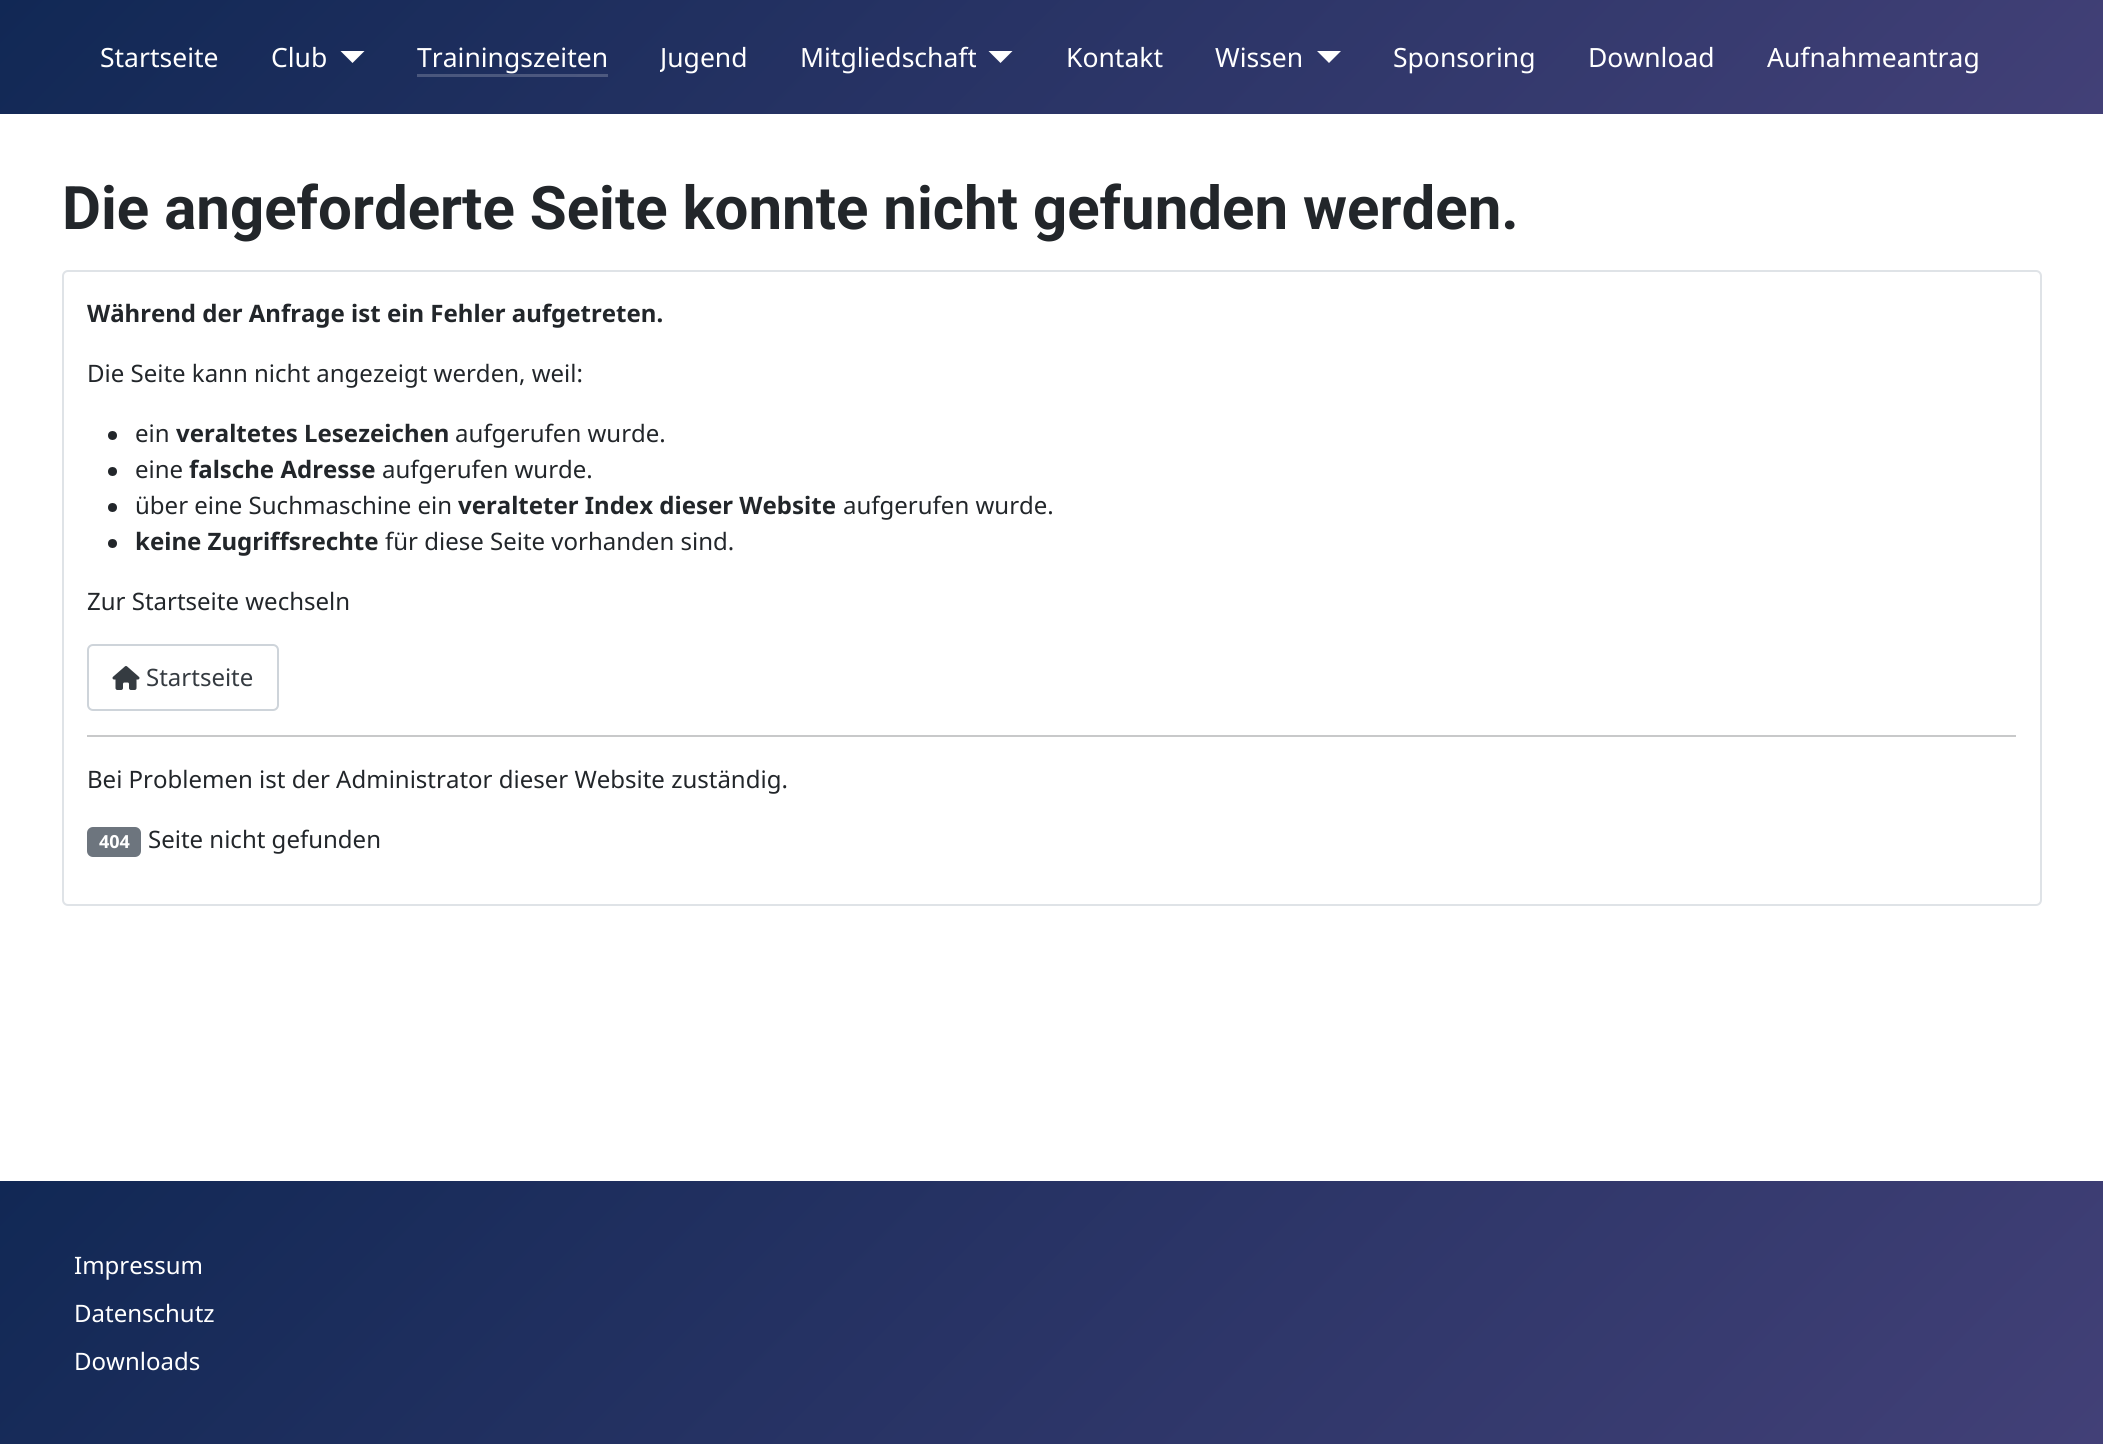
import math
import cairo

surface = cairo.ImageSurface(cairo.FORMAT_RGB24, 2103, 1444)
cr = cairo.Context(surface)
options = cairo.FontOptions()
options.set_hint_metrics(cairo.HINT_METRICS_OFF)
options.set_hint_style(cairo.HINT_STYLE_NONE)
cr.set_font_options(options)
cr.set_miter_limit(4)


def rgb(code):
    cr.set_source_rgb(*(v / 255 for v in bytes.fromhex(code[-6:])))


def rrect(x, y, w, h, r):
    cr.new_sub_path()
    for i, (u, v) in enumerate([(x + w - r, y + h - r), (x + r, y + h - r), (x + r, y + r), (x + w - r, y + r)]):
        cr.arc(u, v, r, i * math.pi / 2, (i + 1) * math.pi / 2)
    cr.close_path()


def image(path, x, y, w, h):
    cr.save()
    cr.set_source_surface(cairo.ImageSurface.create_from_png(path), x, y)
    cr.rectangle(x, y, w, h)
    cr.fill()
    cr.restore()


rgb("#ffffff")
cr.paint()
gradient = cairo.LinearGradient(497, -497, 1606, 611)
gradient.add_color_stop_rgba(0, 0.067, 0.157, 0.333, 1)
gradient.add_color_stop_rgba(1, 0.259, 0.251, 0.467, 1)
cr.set_source(gradient)
cr.rectangle(0, 0, 2103, 114)
cr.fill()
gradient = cairo.LinearGradient(497, -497, 1606, 611)
gradient.add_color_stop_rgba(0, 0.255, 0.325, 0.467, 1)
gradient.add_color_stop_rgba(1, 0.408, 0.4, 0.573, 1)
cr.set_source(gradient)
cr.rectangle(417, 74, 191, 3)
cr.fill()
rgb("#ffffff")
cr.new_path()
cr.move_to(340.5, 51)
cr.line_to(364.5, 51)
cr.line_to(352.5, 63)
cr.close_path()
cr.fill()
cr.new_path()
cr.move_to(988.5, 51)
cr.line_to(1012.5, 51)
cr.line_to(1000.5, 63)
cr.close_path()
cr.fill()
cr.new_path()
cr.move_to(1317, 51)
cr.line_to(1341, 51)
cr.line_to(1329, 63)
cr.close_path()
cr.fill()
rrect(63, 271, 1978, 634, 5)
rgb("#dfe3e7")
cr.stroke()
rgb("#22262a")
cr.arc(112.5, 435.5, 4.5, 0, 2 * math.pi)
cr.fill()
cr.arc(112.5, 471.5, 4.5, 0, 2 * math.pi)
cr.fill()
cr.arc(112.5, 507.5, 4.5, 0, 2 * math.pi)
cr.fill()
cr.arc(112.5, 543.5, 4.5, 0, 2 * math.pi)
cr.fill()
rrect(88, 645, 190, 65, 5)
rgb("#ced4da")
cr.stroke()
image("img/1.png", 112, 666, 28, 24)
rgb("#c8c9ca")
cr.rectangle(87, 735, 1929, 2)
cr.fill()
rgb("#6d757e")
rrect(87, 827, 54, 30, 6)
cr.fill()
gradient = cairo.LinearGradient(460, 721, 1643, 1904)
gradient.add_color_stop_rgba(0, 0.067, 0.157, 0.333, 1)
gradient.add_color_stop_rgba(1, 0.259, 0.251, 0.467, 1)
cr.set_source(gradient)
cr.rectangle(0, 1181, 2103, 263)
cr.fill()
cr.select_font_face("Noto Sans")
cr.set_font_size(26.5)
rgb("#ffffff")
for x, y, s in [
    (100, 67, "Startseite"),
    (271, 67, "Club"),
    (417, 67, "Trainingszeiten"),
]:
    cr.move_to(x, y)
    cr.show_text(s)
cr.save()
cr.rectangle(660, 38, 87, 39)
cr.clip()
cr.move_to(660, 67)
cr.show_text("Jugend")
cr.restore()
for x, y, s in [
    (800, 67, "Mitgliedschaft"),
    (1066, 67, "Kontakt"),
    (1215, 67, "Wissen"),
    (1393, 67, "Sponsoring"),
    (1588, 67, "Download"),
    (1767, 67, "Aufnahmeantrag"),
]:
    cr.move_to(x, y)
    cr.show_text(s)
cr.select_font_face("Roboto", cairo.FONT_SLANT_NORMAL, cairo.FONT_WEIGHT_BOLD)
cr.set_font_size(60)
rgb("#22262a")
cr.move_to(62, 229)
cr.show_text("Die angeforderte Seite konnte nicht gefunden werden.")
cr.select_font_face("Noto Sans", cairo.FONT_SLANT_NORMAL, cairo.FONT_WEIGHT_BOLD)
cr.set_font_size(24)
cr.move_to(87, 322)
cr.show_text("Während der Anfrage ist ein Fehler aufgetreten.")
cr.select_font_face("Noto Sans")
cr.move_to(87, 382)
cr.show_text("Die Seite kann nicht angezeigt werden, weil:")
cr.move_to(135, 442)
cr.show_text("ein")
cr.select_font_face("Noto Sans", cairo.FONT_SLANT_NORMAL, cairo.FONT_WEIGHT_BOLD)
cr.move_to(176, 442)
cr.show_text("veraltetes Lesezeichen")
cr.select_font_face("Noto Sans")
cr.move_to(455, 442)
cr.show_text("aufgerufen wurde.")
cr.move_to(135, 478)
cr.show_text("eine")
cr.select_font_face("Noto Sans", cairo.FONT_SLANT_NORMAL, cairo.FONT_WEIGHT_BOLD)
cr.move_to(189, 478)
cr.show_text("falsche Adresse")
cr.select_font_face("Noto Sans")
cr.move_to(382, 478)
cr.show_text("aufgerufen wurde.")
cr.move_to(135, 514)
cr.show_text("über eine Suchmaschine ein")
cr.select_font_face("Noto Sans", cairo.FONT_SLANT_NORMAL, cairo.FONT_WEIGHT_BOLD)
cr.move_to(458, 514)
cr.show_text("veralteter Index dieser Website")
cr.select_font_face("Noto Sans")
cr.move_to(843, 514)
cr.show_text("aufgerufen wurde.")
cr.select_font_face("Noto Sans", cairo.FONT_SLANT_NORMAL, cairo.FONT_WEIGHT_BOLD)
cr.move_to(135, 550)
cr.show_text("keine Zugriffsrechte")
cr.select_font_face("Noto Sans")
cr.move_to(385, 550)
cr.show_text("für diese Seite vorhanden sind.")
cr.move_to(87, 610)
cr.show_text("Zur Startseite wechseln")
rgb("#353b41")
cr.move_to(146, 686)
cr.show_text("Startseite")
rgb("#22262a")
cr.move_to(87, 788)
cr.show_text("Bei Problemen ist der Administrator dieser Website zuständig.")
cr.select_font_face("Noto Sans", cairo.FONT_SLANT_NORMAL, cairo.FONT_WEIGHT_BOLD)
cr.set_font_size(18)
rgb("#ffffff")
cr.move_to(99, 848)
cr.show_text("404")
cr.select_font_face("Noto Sans")
cr.set_font_size(24)
rgb("#22262a")
cr.move_to(148, 848)
cr.show_text("Seite nicht gefunden")
rgb("#ffffff")
for x, y, s in [
    (74, 1274, "Impressum"),
    (74, 1322, "Datenschutz"),
    (74, 1370, "Downloads"),
]:
    cr.move_to(x, y)
    cr.show_text(s)
surface.write_to_png("page.png")
